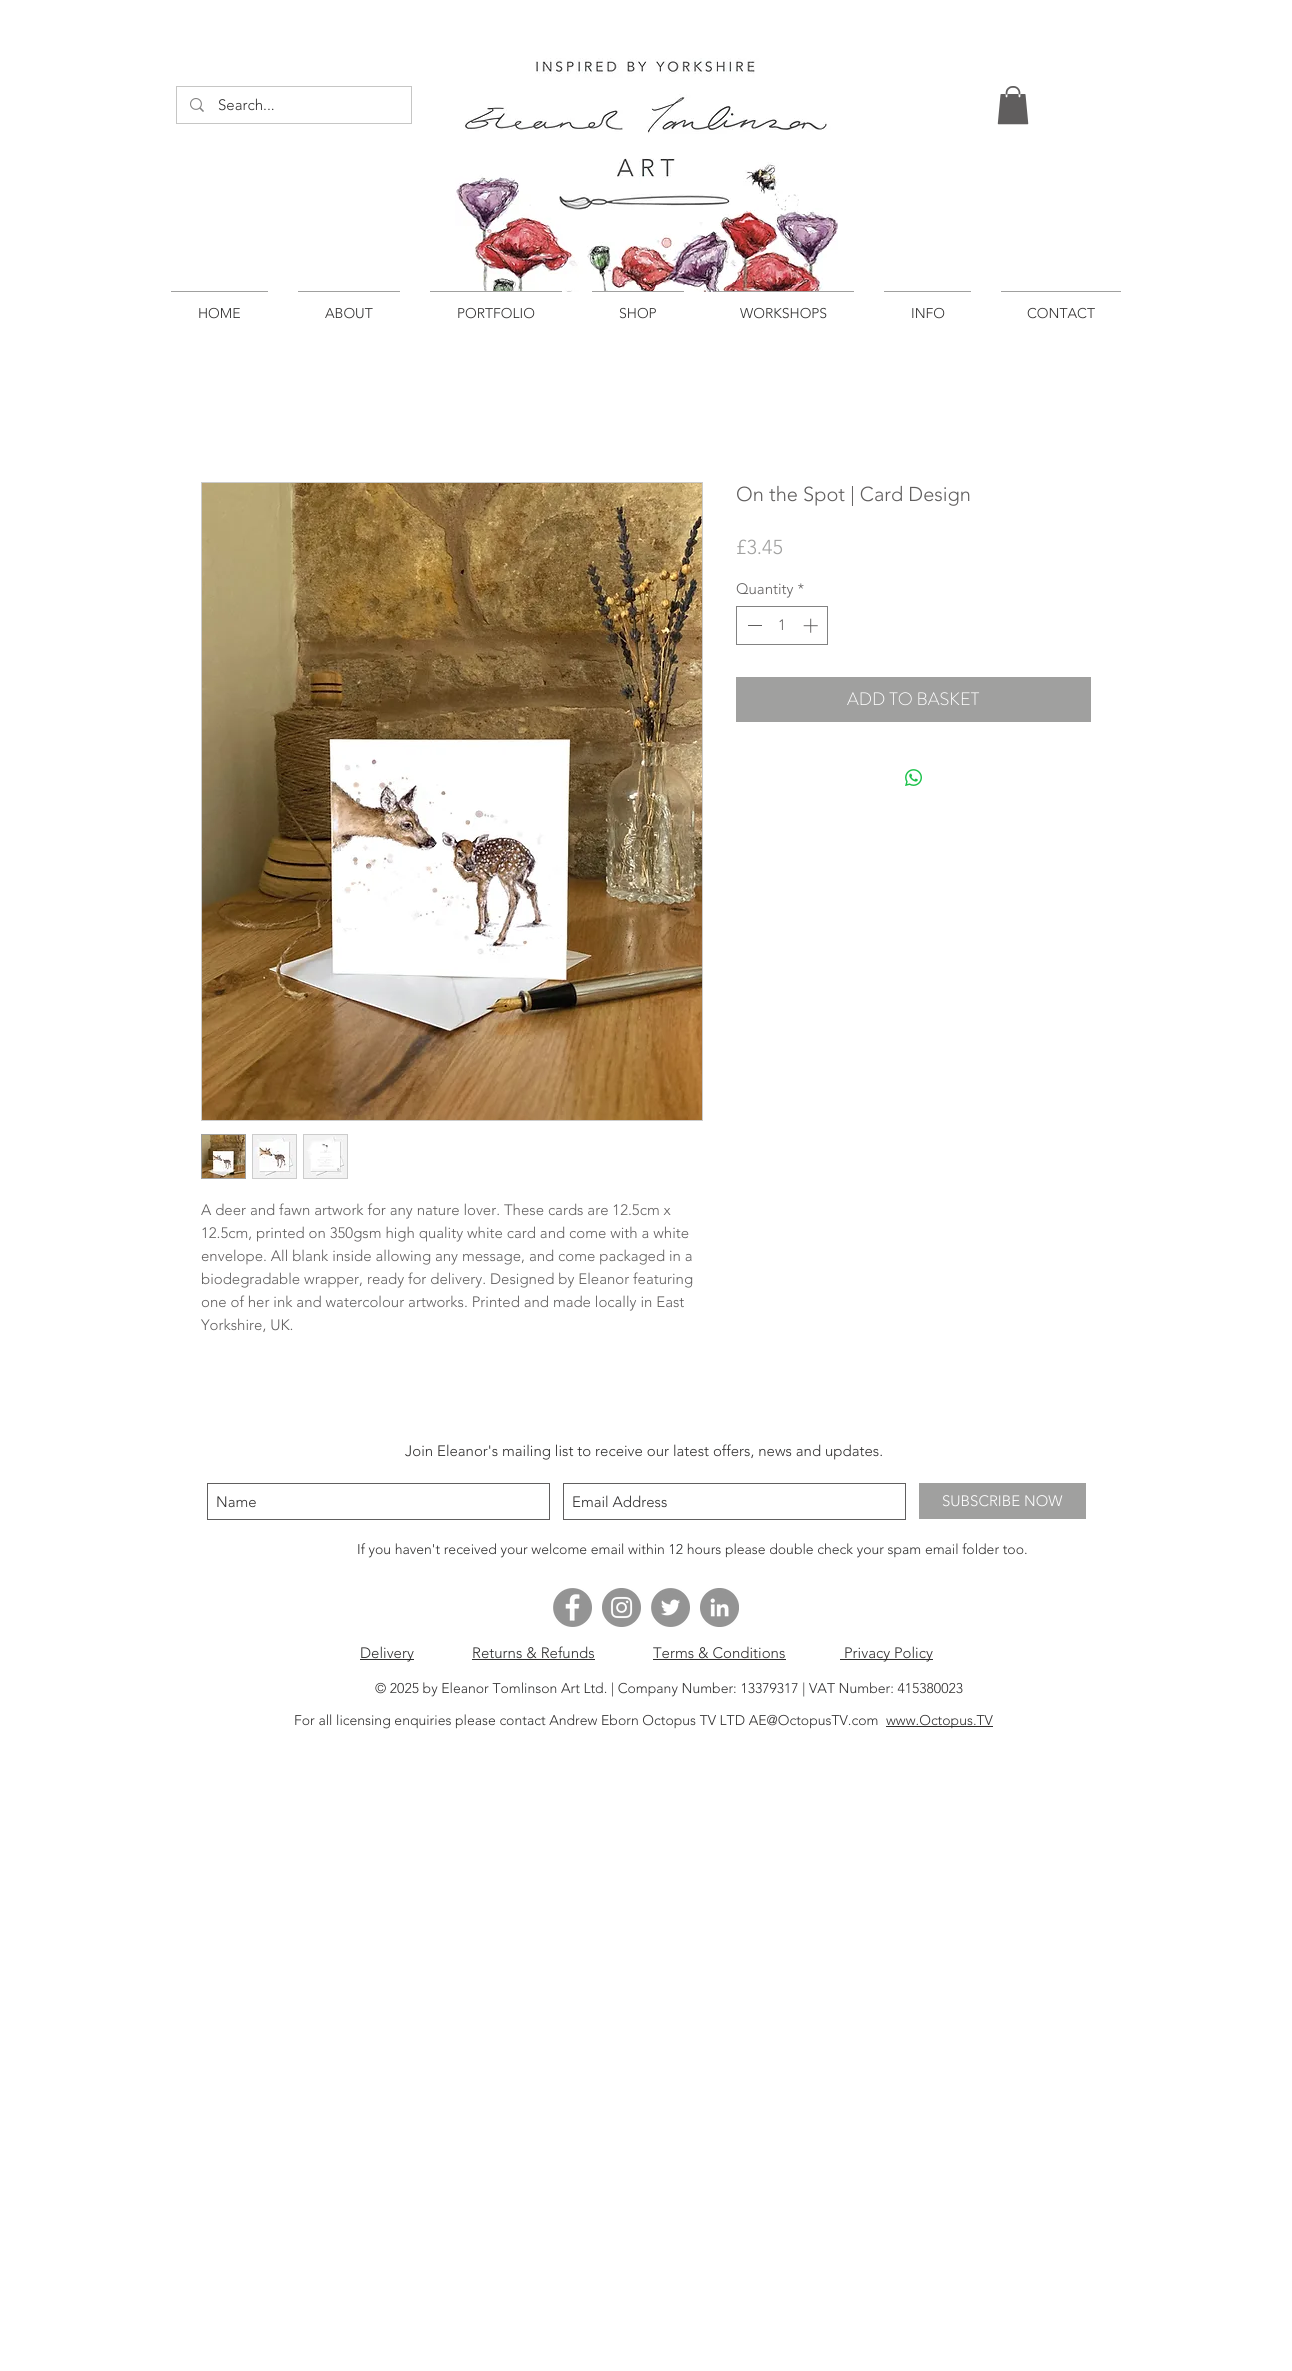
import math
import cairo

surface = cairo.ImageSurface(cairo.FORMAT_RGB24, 1292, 2371)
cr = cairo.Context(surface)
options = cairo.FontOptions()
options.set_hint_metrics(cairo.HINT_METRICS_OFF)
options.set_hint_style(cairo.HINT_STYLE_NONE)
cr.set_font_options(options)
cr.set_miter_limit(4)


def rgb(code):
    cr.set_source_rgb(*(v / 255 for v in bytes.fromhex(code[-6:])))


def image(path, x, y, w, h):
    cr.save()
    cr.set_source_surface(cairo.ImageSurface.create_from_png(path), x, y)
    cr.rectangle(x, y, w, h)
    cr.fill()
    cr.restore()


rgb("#ffffff")
cr.paint()
cr.rectangle(176.5, 86.5, 235, 37)
rgb("#c6c6c5")
cr.set_line_width(1)
cr.stroke()
image("img/1.png", 190, 98, 14, 14)
image("img/2.png", 455, 58, 383, 234)
image("img/3.png", 997, 86, 32, 39)
for x, y, w, h, color in [
    (171, 291, 97, 1, "#a0a09f"),
    (298, 291, 102, 1, "#a0a09f"),
    (430, 291, 132, 1, "#a0a09f"),
    (592, 291, 92, 1, "#a0a09f"),
    (714, 291, 140, 1, "#a0a09f"),
    (884, 291, 87, 1, "#a0a09f"),
    (1001, 291, 120, 1, "#a0a09f"),
]:
    rgb(color)
    cr.rectangle(x, y, w, h)
    cr.fill()
cr.rectangle(736.5, 606.5, 91, 38)
rgb("#828282")
cr.stroke()
rgb("#605e5e")
cr.rectangle(748, 625, 14, 1)
cr.fill()
image("img/4.png", 803, 618, 15, 15)
rgb("#a0a09f")
cr.rectangle(736, 677, 355, 45)
cr.fill()
image("img/5.png", 905, 769, 17, 17)
cr.rectangle(201.5, 482.5, 501, 638)
rgb("#cccccc")
cr.stroke()
image("img/6.png", 202, 483, 500, 637)
cr.rectangle(201.5, 1134.5, 44, 44)
rgb("#a0a09f")
cr.stroke()
image("img/7.png", 202, 1135, 43, 43)
cr.rectangle(252.5, 1134.5, 44, 44)
rgb("#cccccc")
cr.stroke()
image("img/8.png", 253, 1135, 43, 43)
cr.rectangle(303.5, 1134.5, 44, 44)
cr.stroke()
image("img/9.png", 304, 1135, 43, 43)
cr.rectangle(207.5, 1483.5, 342, 36)
rgb("#605e5e")
cr.stroke()
cr.rectangle(563.5, 1483.5, 342, 36)
cr.stroke()
rgb("#a0a09f")
cr.rectangle(919, 1483, 167, 36)
cr.fill()
image("img/10.png", 553, 1588, 39, 39)
image("img/11.png", 602, 1588, 39, 39)
image("img/12.png", 651, 1588, 39, 39)
image("img/13.png", 700, 1588, 39, 39)
for x, y, w, h, color in [
    (360, 1659, 54, 1, "#2f2e2e"),
    (472, 1659, 123, 1, "#2f2e2e"),
    (653, 1659, 133, 1, "#2f2e2e"),
    (840, 1659, 93, 1, "#2f2e2e"),
    (886, 1726, 107, 1, "#2f2e2e"),
]:
    rgb(color)
    cr.rectangle(x, y, w, h)
    cr.fill()
cr.select_font_face("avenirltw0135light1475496 Light")
cr.set_font_size(15)
cr.move_to(218, 110)
cr.show_text("Search...")
cr.set_font_size(14)
for x, y, s in [
    (198, 318, "HOME"),
    (325, 318, "ABOUT"),
    (457, 318, "PORTFOLIO"),
    (619, 318, "SHOP"),
    (740, 318, "WORKSHOPS"),
    (911, 318, "INFO"),
    (1027, 318, "CONTACT"),
]:
    cr.move_to(x, y)
    cr.show_text(s)
cr.set_font_size(20)
rgb("#605e5e")
cr.move_to(736, 501)
cr.show_text("On the Spot | Card Design")
rgb("#a0a09f")
cr.move_to(736, 554)
cr.show_text("£3.45")
cr.set_font_size(15)
rgb("#605e5e")
cr.move_to(736, 594)
cr.show_text("Quantity *")
cr.move_to(778, 630)
cr.show_text("1")
cr.select_font_face("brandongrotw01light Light")
cr.set_font_size(18)
rgb("#ffffff")
cr.move_to(847, 705)
cr.show_text("ADD TO BASKET")
cr.select_font_face("avenirltw0135light1475496 Light")
cr.set_font_size(15)
rgb("#605e5e")
for x, y, s in [
    (201, 1215, "A deer and fawn artwork for any nature lover. These cards are 12.5cm x"),
    (201, 1238, "12.5cm, printed on 350gsm high quality white card and come with a white"),
    (201, 1261, "envelope. All blank inside allowing any message, and come packaged in a"),
    (201, 1284, "biodegradable wrapper, ready for delivery. Designed by Eleanor featuring"),
    (201, 1307, "one of her ink and watercolour artworks. Printed and made locally in East"),
    (201, 1330, "Yorkshire, UK."),
]:
    cr.move_to(x, y)
    cr.show_text(s)
rgb("#2f2e2e")
for x, y, s in [
    (405, 1456, "Join Eleanor's mailing list to receive our latest offers, news and updates."),
    (216, 1507, "Name"),
    (572, 1507, "Email Address"),
]:
    cr.move_to(x, y)
    cr.show_text(s)
rgb("#ffffff")
cr.move_to(942, 1506)
cr.show_text("SUBSCRIBE NOW")
cr.set_font_size(14)
rgb("#2f2e2e")
cr.move_to(357, 1554)
cr.show_text("If you haven't received your welcome email within 12 hours please double check your spam email folder too.")
cr.set_font_size(15)
for x, y, s in [
    (360, 1658, "Delivery"),
    (472, 1658, "Returns & Refunds"),
    (653, 1658, "Terms & Conditions"),
    (844, 1658, "Privacy Policy"),
]:
    cr.move_to(x, y)
    cr.show_text(s)
cr.set_font_size(14)
for x, y, s in [
    (375, 1693, "© 2025 by Eleanor Tomlinson Art Ltd. | Company Number: 13379317 | VAT Number: 415380023"),
    (294, 1725, "For all licensing enquiries please contact Andrew Eborn Octopus TV LTD AE@OctopusTV.com"),
    (886, 1725, "www.Octopus.TV"),
]:
    cr.move_to(x, y)
    cr.show_text(s)
surface.write_to_png("page.png")
